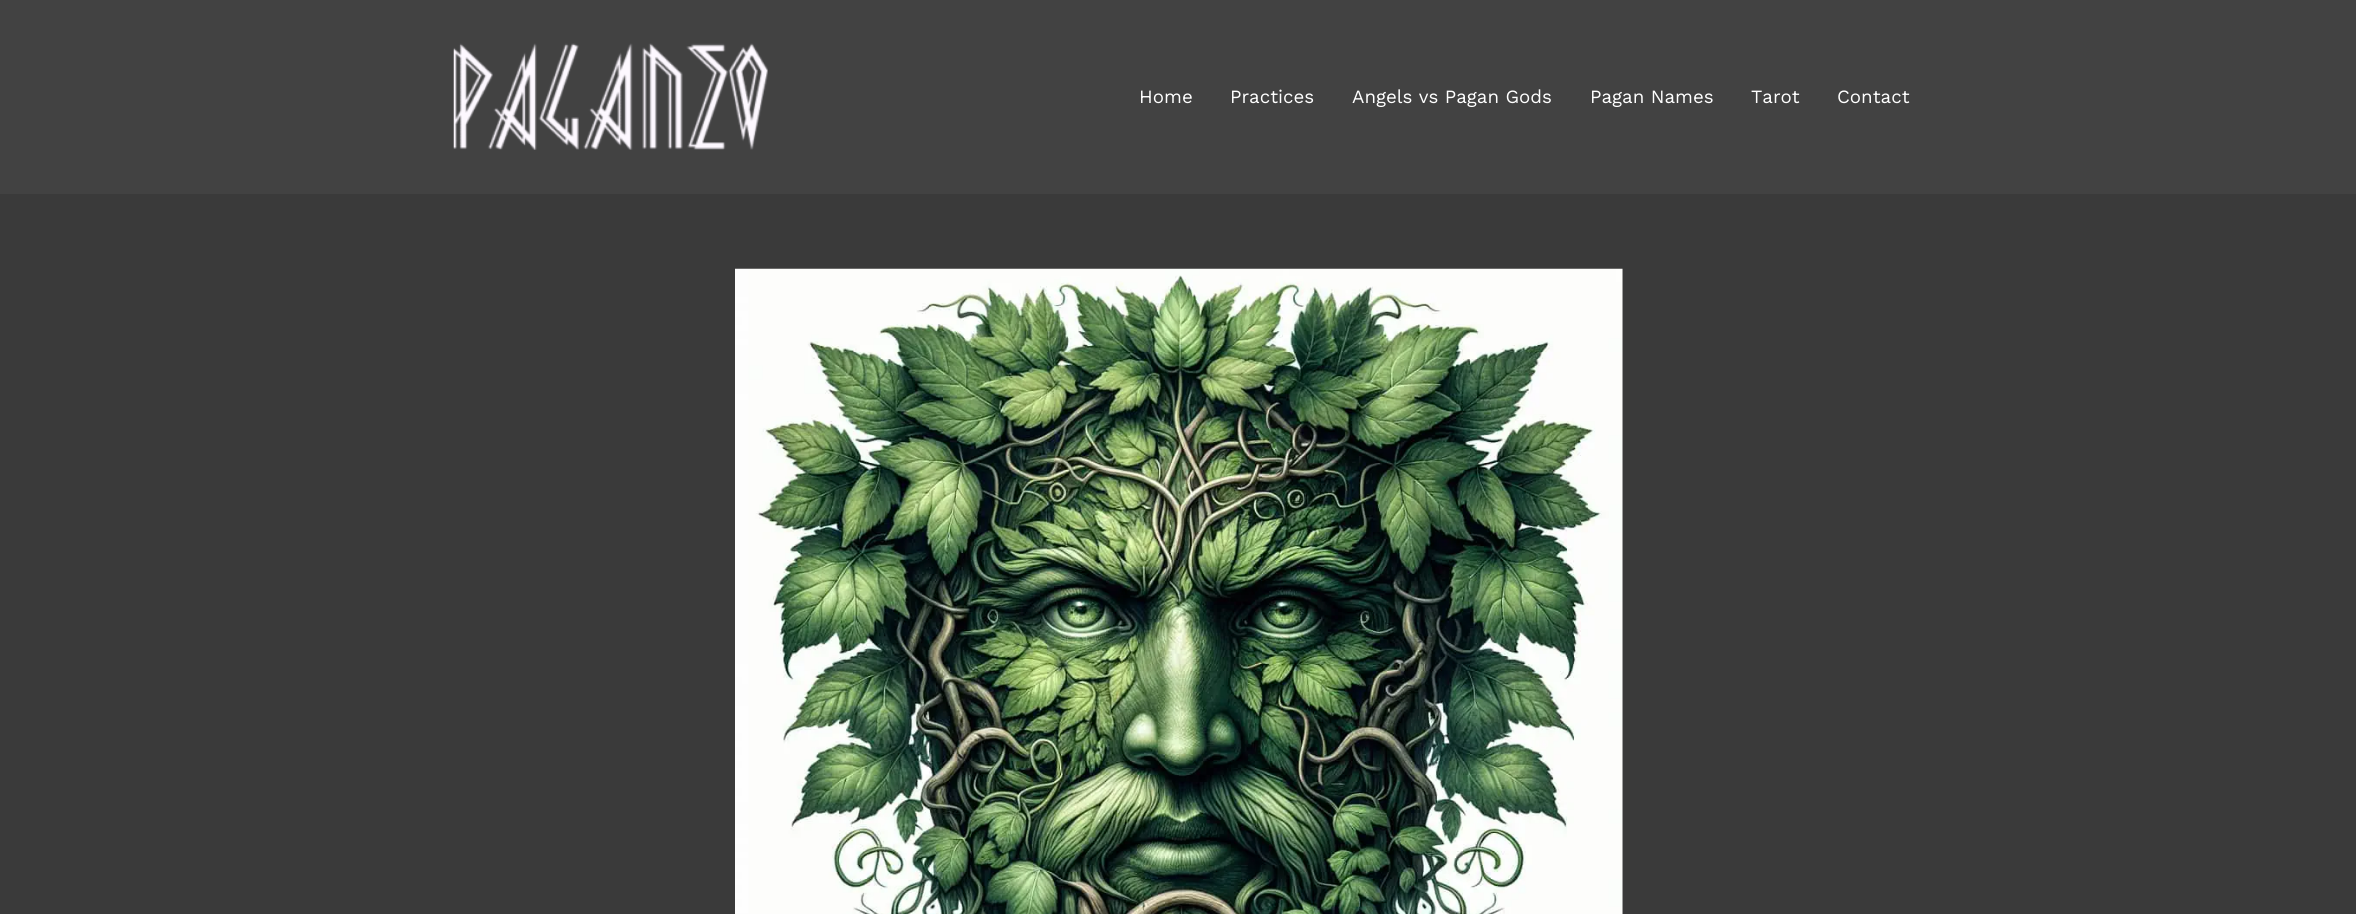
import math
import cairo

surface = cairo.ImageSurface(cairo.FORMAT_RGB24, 2356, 914)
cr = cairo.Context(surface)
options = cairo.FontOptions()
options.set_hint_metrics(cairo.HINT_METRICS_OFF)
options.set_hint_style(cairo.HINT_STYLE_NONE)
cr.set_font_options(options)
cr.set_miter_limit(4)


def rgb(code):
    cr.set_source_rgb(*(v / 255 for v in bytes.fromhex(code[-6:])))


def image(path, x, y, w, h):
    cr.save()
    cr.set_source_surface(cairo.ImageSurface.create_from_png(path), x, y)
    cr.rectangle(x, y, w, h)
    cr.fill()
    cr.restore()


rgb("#3a3a3a")
cr.paint()
rgb("#424242")
cr.rectangle(0, 0, 2356, 194)
cr.fill()
image("img/1.png", 453, 43, 315, 107)
cr.rectangle(1622, 269, 1, 645)
cr.fill()
image("img/2.png", 735, 268, 888, 646)
cr.select_font_face("Work Sans")
cr.set_font_size(18.75)
rgb("#ffffff")
for x, y, s in [
    (1139, 103, "Home"),
    (1230, 103, "Practices"),
    (1352, 103, "Angels vs Pagan Gods"),
    (1590, 103, "Pagan Names"),
    (1751, 103, "Tarot"),
    (1837, 103, "Contact"),
]:
    cr.move_to(x, y)
    cr.show_text(s)
surface.write_to_png("page.png")
